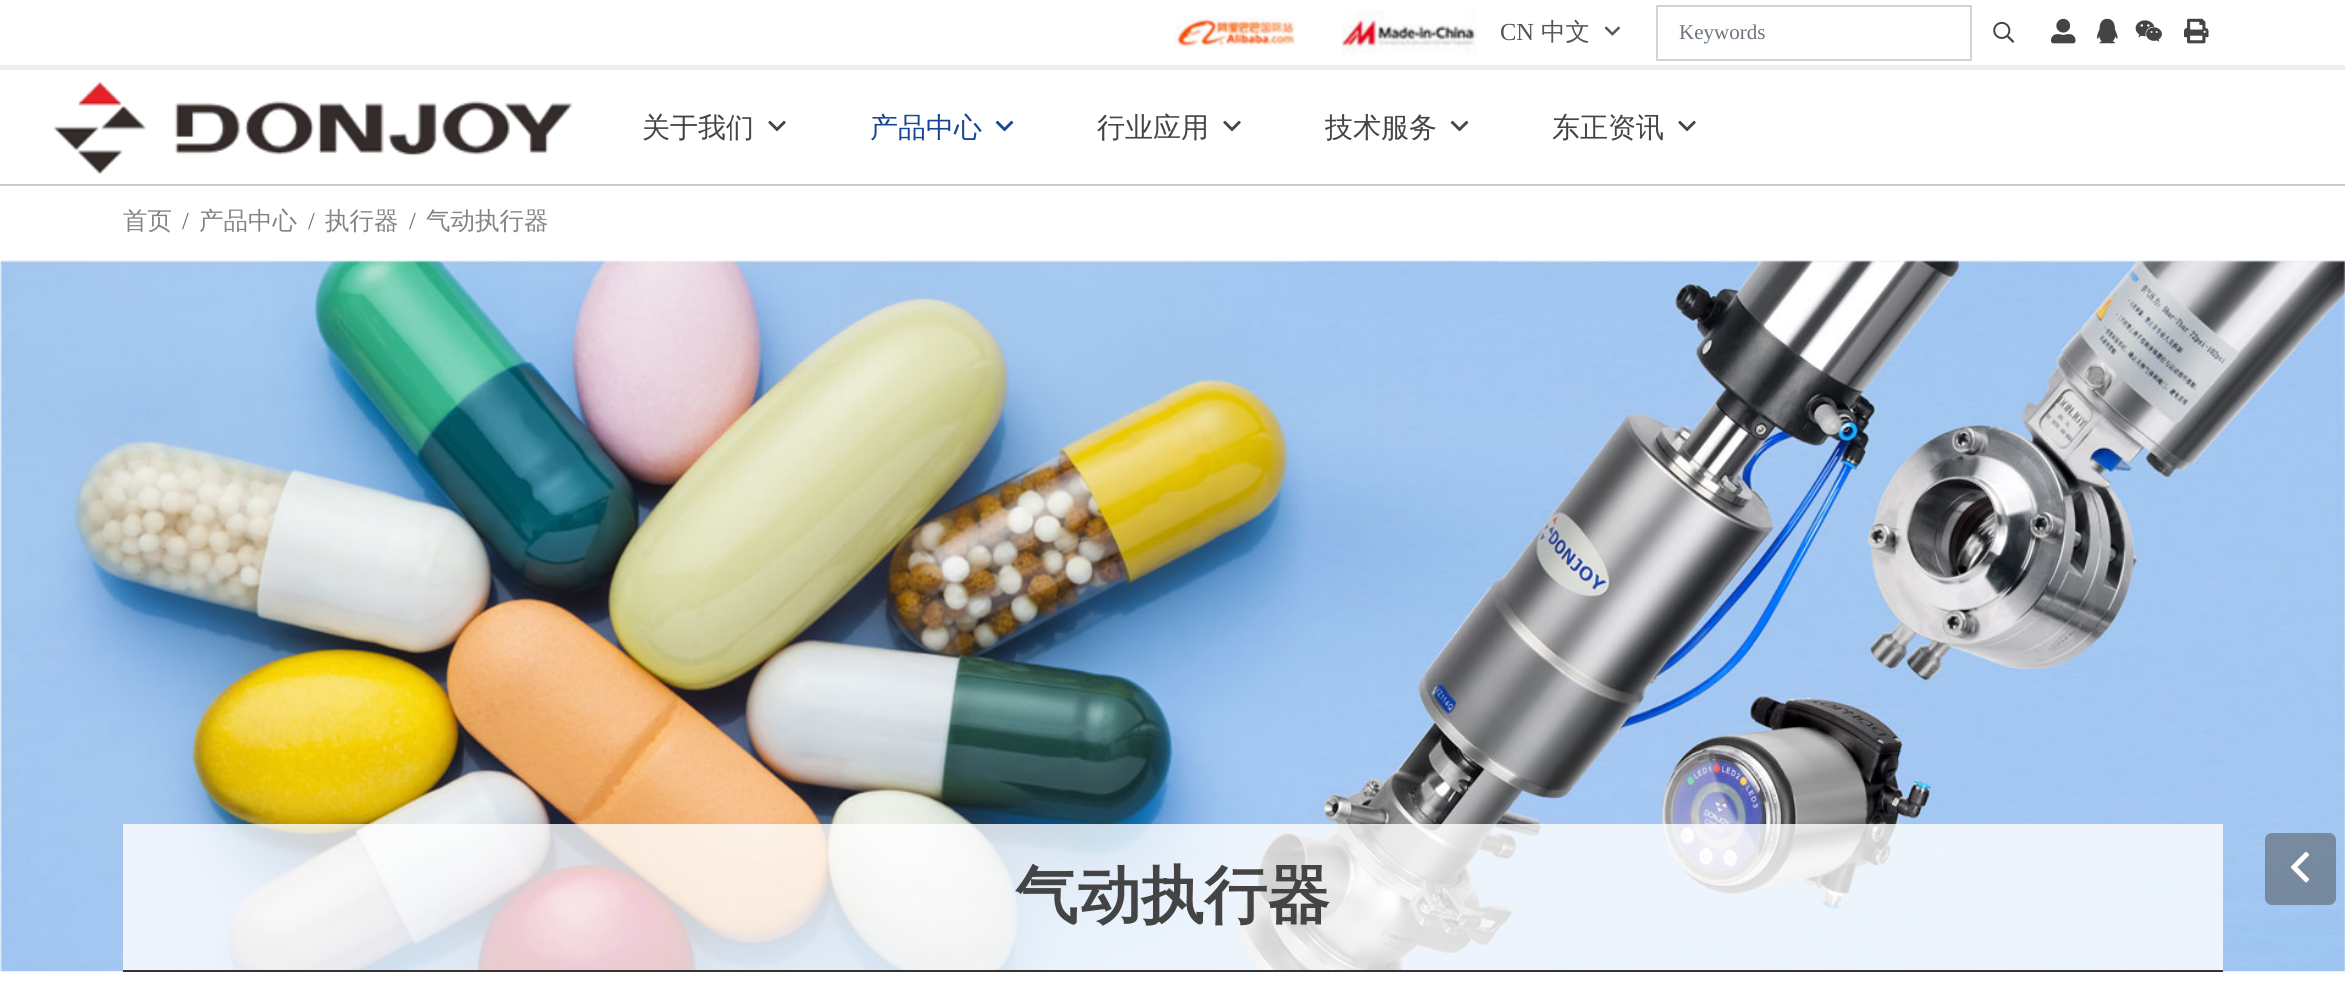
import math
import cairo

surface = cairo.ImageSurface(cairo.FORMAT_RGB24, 2345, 991)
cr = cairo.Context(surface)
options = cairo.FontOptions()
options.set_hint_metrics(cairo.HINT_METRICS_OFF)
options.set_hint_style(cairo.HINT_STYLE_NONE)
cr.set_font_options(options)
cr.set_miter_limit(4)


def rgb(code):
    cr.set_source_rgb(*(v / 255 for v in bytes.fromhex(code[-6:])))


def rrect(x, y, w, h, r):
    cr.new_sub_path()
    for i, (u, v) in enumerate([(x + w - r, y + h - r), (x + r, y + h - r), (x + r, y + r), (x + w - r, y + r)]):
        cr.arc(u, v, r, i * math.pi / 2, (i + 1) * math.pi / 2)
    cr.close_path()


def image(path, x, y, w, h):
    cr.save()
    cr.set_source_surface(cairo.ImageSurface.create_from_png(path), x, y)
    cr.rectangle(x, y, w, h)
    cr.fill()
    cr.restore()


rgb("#ffffff")
cr.paint()
rgb("#eeeeee")
cr.rectangle(0, 65, 2345, 5)
cr.fill()
image("img/1.png", 1174, 16, 122, 33)
image("img/2.png", 1342, 10, 135, 46)
image("img/3.png", 1604, 26, 16, 10)
cr.rectangle(1657, 6, 314, 54)
rgb("#ced4da")
cr.stroke()
image("img/4.png", 1993, 21, 22, 22)
image("img/5.png", 2051, 18, 25, 26)
image("img/6.png", 2096, 18, 22, 26)
image("img/7.png", 2135, 20, 27, 22)
image("img/8.png", 2184, 18, 25, 26)
rgb("#c9cbca")
cr.rectangle(0, 184, 2345, 2)
cr.fill()
image("img/9.png", 54, 81, 519, 93)
image("img/10.png", 768, 120, 18, 12)
image("img/11.png", 995, 120, 19, 12)
image("img/10.png", 1223, 120, 18, 12)
image("img/12.png", 1450, 120, 19, 12)
image("img/10.png", 1678, 120, 18, 12)
image("img/13.png", 0, 260, 2345, 712)
cr.set_source_rgba(1, 1, 1, 0.8)
cr.rectangle(123, 824, 2100, 146)
cr.fill()
rgb("#333333")
cr.rectangle(123, 970, 2100, 2)
cr.fill()
cr.set_source_rgba(0.353, 0.384, 0.408, 0.6)
rrect(2265, 833, 71, 72, 7)
cr.fill()
image("img/14.png", 2290, 851, 20, 32)
cr.select_font_face("Liberation Serif")
cr.set_font_size(24.5)
rgb("#555555")
cr.move_to(1500, 40)
cr.show_text("CN")
cr.select_font_face("WenQuanYi Zen Hei Medium")
cr.move_to(1541, 40)
cr.show_text("中文")
cr.select_font_face("Liberation Serif")
cr.set_font_size(21)
rgb("#6c757d")
cr.move_to(1679, 39)
cr.show_text("Keywords")
cr.select_font_face("WenQuanYi Zen Hei Medium")
cr.set_font_size(28)
rgb("#444444")
cr.move_to(642, 137)
cr.show_text("关于我们")
rgb("#174592")
cr.move_to(870, 137)
cr.show_text("产品中心")
rgb("#444444")
for x, y, s in [
    (1097, 137, "行业应用"),
    (1325, 137, "技术服务"),
    (1552, 137, "东正资讯"),
]:
    cr.move_to(x, y)
    cr.show_text(s)
cr.set_font_size(24.5)
rgb("#838383")
cr.move_to(123, 229)
cr.show_text("首页")
cr.select_font_face("Liberation Serif")
rgb("#6e6e6e")
cr.move_to(182, 229)
cr.show_text("/")
cr.select_font_face("WenQuanYi Zen Hei Medium")
rgb("#838383")
cr.move_to(199, 229)
cr.show_text("产品中心")
cr.select_font_face("Liberation Serif")
rgb("#6e6e6e")
cr.move_to(308, 229)
cr.show_text("/")
cr.select_font_face("WenQuanYi Zen Hei Medium")
rgb("#838383")
cr.move_to(325, 229)
cr.show_text("执行器")
cr.select_font_face("Liberation Serif")
rgb("#6e6e6e")
cr.move_to(409, 229)
cr.show_text("/")
cr.select_font_face("WenQuanYi Zen Hei Medium")
rgb("#838383")
cr.move_to(426, 229)
cr.show_text("气动执行器")
cr.select_font_face("WenQuanYi Zen Hei", cairo.FONT_SLANT_NORMAL, cairo.FONT_WEIGHT_BOLD)
cr.set_font_size(63)
rgb("#444444")
cr.move_to(1015, 917)
cr.show_text("气动执行器")
surface.write_to_png("page.png")
